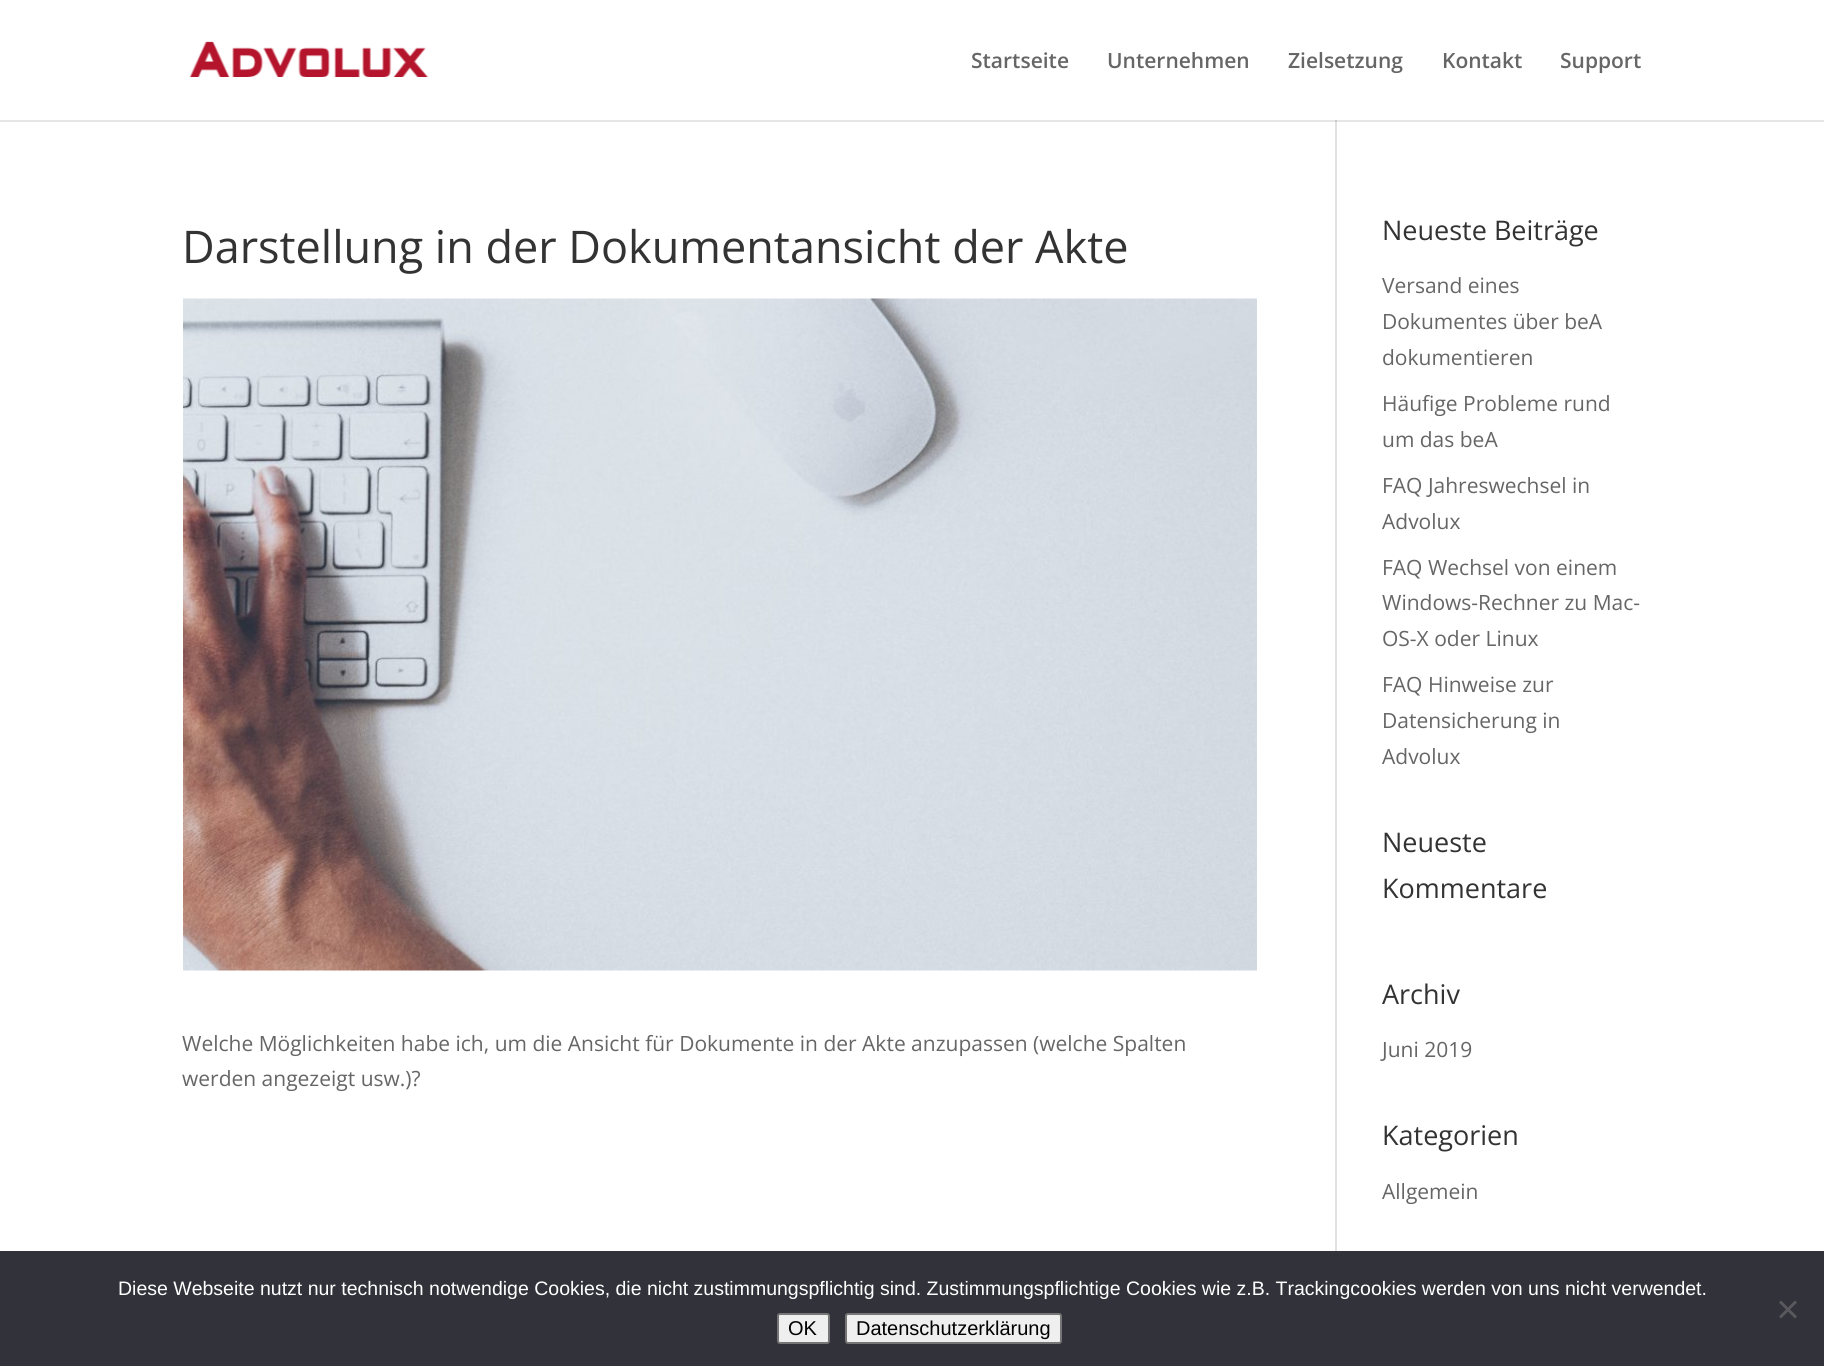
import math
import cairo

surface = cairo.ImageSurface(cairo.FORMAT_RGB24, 1824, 1366)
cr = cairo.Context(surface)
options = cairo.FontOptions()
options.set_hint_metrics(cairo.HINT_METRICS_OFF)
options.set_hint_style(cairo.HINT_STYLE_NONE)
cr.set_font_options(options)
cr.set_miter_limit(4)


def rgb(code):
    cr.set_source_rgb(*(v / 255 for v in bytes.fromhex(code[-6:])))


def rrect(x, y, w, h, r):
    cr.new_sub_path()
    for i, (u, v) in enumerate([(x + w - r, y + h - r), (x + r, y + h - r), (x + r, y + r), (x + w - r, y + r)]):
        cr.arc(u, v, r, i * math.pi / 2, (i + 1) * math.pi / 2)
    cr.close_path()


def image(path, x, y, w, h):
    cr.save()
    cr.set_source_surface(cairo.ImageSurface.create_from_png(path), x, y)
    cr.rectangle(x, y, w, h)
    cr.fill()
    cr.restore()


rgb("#ffffff")
cr.paint()
rgb("#e6e6e6")
cr.rectangle(0, 120, 1824, 2)
cr.fill()
image("img/1.png", 189, 41, 240, 36)
rgb("#e2e2e2")
cr.rectangle(1335, 120, 2, 1131)
cr.fill()
rgb("#cbcbcb")
cr.rectangle(1335, 120, 2, 2)
cr.fill()
image("img/2.png", 183, 298, 1074, 673)
rgb("#32323a")
cr.rectangle(0, 1251, 1824, 115)
cr.fill()
rgb("#59595d")
cr.new_path()
cr.move_to(1795, 1300.5)
cr.line_to(1797, 1302.5)
cr.line_to(1781, 1318.5)
cr.line_to(1779, 1316.5)
cr.close_path()
cr.fill()
cr.new_path()
cr.move_to(1779, 1302.5)
cr.line_to(1781, 1300.5)
cr.line_to(1797, 1316.5)
cr.line_to(1795, 1318.5)
cr.close_path()
cr.fill()
rgb("#efefef")
rrect(778, 1314, 51, 29, 2)
cr.fill_preserve()
rgb("#767676")
cr.stroke()
rgb("#efefef")
rrect(846, 1314, 215, 29, 2)
cr.fill_preserve()
rgb("#767676")
cr.stroke()
cr.select_font_face("Open Sans SemiBold")
cr.set_font_size(21)
rgb("#666666")
for x, y, s in [
    (971, 68, "Startseite"),
    (1107, 68, "Unternehmen"),
    (1288, 68, "Zielsetzung"),
    (1442, 68, "Kontakt"),
    (1560, 68, "Support"),
]:
    cr.move_to(x, y)
    cr.show_text(s)
cr.select_font_face("Open Sans")
cr.set_font_size(45)
rgb("#333333")
cr.move_to(182, 263)
cr.show_text("Darstellung in der Dokumentansicht der Akte")
cr.set_font_size(21)
rgb("#666666")
cr.move_to(182, 1051)
cr.show_text("Welche Möglichkeiten habe ich, um die Ansicht für Dokumente in der Akte anzupassen (welche Spalten")
cr.move_to(182, 1086)
cr.show_text("werden angezeigt usw.)?")
cr.set_font_size(27)
rgb("#333333")
cr.move_to(1382, 240)
cr.show_text("Neueste Beiträge")
cr.set_font_size(21)
rgb("#666666")
for x, y, s in [
    (1382, 293, "Versand eines"),
    (1382, 329, "Dokumentes über beA"),
    (1382, 365, "dokumentieren"),
    (1382, 411, "Häufige Probleme rund"),
    (1382, 447, "um das beA"),
    (1382, 493, "FAQ Jahreswechsel in"),
    (1382, 529, "Advolux"),
    (1382, 575, "FAQ Wechsel von einem"),
    (1382, 610, "Windows-Rechner zu Mac-"),
    (1382, 646, "OS-X oder Linux"),
    (1382, 692, "FAQ Hinweise zur"),
    (1382, 728, "Datensicherung in"),
    (1382, 764, "Advolux"),
]:
    cr.move_to(x, y)
    cr.show_text(s)
cr.set_font_size(27)
rgb("#333333")
for x, y, s in [
    (1382, 852, "Neueste"),
    (1382, 898, "Kommentare"),
    (1382, 1004, "Archiv"),
]:
    cr.move_to(x, y)
    cr.show_text(s)
cr.set_font_size(21)
rgb("#666666")
cr.move_to(1382, 1057)
cr.show_text("Juni 2019")
cr.set_font_size(27)
rgb("#333333")
cr.move_to(1382, 1145)
cr.show_text("Kategorien")
cr.set_font_size(21)
rgb("#666666")
cr.move_to(1382, 1199)
cr.show_text("Allgemein")
cr.select_font_face("Liberation Sans")
cr.set_font_size(19.5)
rgb("#ffffff")
cr.move_to(118, 1295)
cr.show_text("Diese Webseite nutzt nur technisch notwendige Cookies, die nicht zustimmungspflichtig sind. Zustimmungspflichtige Cookies wie z.B. Trackingcookies werden von uns nicht verwendet.")
cr.set_font_size(20)
rgb("#000000")
cr.move_to(788, 1335)
cr.show_text("OK")
cr.move_to(856, 1335)
cr.show_text("Datenschutzerklärung")
surface.write_to_png("page.png")
